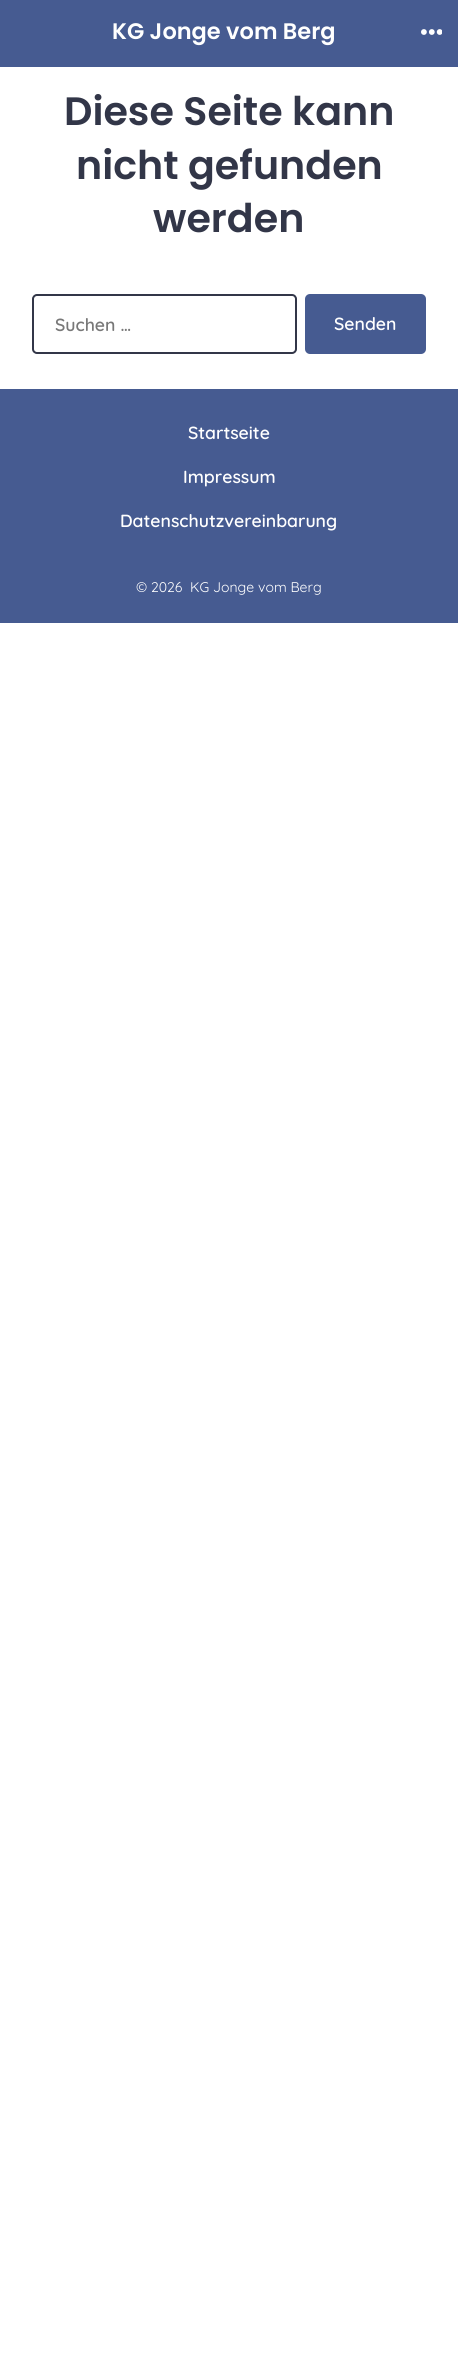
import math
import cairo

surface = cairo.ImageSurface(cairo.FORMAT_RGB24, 458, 2375)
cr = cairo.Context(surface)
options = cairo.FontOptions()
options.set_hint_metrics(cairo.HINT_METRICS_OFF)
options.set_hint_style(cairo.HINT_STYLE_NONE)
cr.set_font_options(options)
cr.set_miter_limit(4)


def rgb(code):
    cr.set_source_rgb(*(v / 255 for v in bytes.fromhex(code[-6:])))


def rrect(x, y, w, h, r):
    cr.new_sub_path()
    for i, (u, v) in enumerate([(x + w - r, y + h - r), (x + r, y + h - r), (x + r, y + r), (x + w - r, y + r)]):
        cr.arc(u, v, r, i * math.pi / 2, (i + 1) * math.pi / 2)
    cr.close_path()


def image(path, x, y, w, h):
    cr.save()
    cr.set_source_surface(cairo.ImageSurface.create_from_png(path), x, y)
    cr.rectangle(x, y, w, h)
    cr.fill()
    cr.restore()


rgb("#ffffff")
cr.paint()
rgb("#465b91")
cr.rectangle(0, 0, 458, 67)
cr.fill()
image("img/1.png", 421, 29, 21, 6)
rrect(33, 295, 263, 58, 4)
rgb("#323648")
cr.stroke()
rgb("#465b91")
rrect(305, 294, 121, 60, 5)
cr.fill()
cr.rectangle(0, 389, 458, 234)
cr.fill()
cr.select_font_face("Poppins SemiBold")
cr.set_font_size(22.5)
rgb("#ffffff")
cr.move_to(112, 39)
cr.show_text("KG Jonge vom Berg")
cr.set_font_size(39.6)
rgb("#323648")
for x, y, s in [
    (64, 125, "Diese Seite kann"),
    (76, 179, "nicht gefunden"),
    (153, 232, "werden"),
]:
    cr.move_to(x, y)
    cr.show_text(s)
cr.select_font_face("Quicksand SemiBold")
cr.set_font_size(17.6)
rgb("#787878")
cr.move_to(55, 331)
cr.show_text("Suchen …")
rgb("#ffffff")
for x, y, s in [
    (334, 330, "Senden"),
    (188, 439, "Startseite"),
    (183, 483, "Impressum"),
    (120, 527, "Datenschutzvereinbarung"),
]:
    cr.move_to(x, y)
    cr.show_text(s)
cr.select_font_face("Quicksand")
cr.set_font_size(14)
cr.move_to(136, 592)
cr.show_text("© 2026")
cr.move_to(190, 592)
cr.show_text("KG Jonge vom Berg")
surface.write_to_png("page.png")
